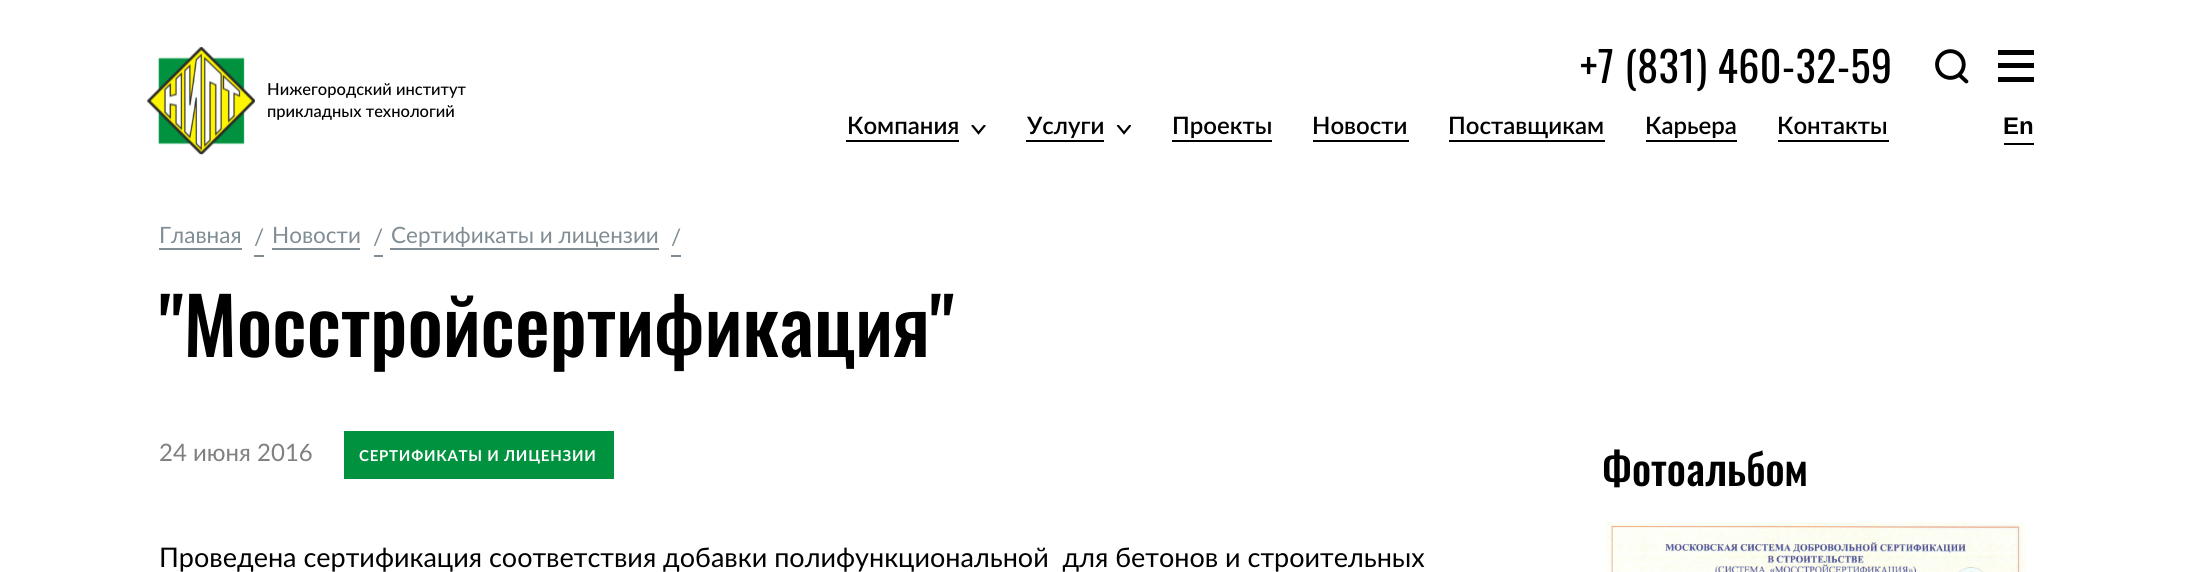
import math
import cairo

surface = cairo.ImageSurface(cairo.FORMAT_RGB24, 2193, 572)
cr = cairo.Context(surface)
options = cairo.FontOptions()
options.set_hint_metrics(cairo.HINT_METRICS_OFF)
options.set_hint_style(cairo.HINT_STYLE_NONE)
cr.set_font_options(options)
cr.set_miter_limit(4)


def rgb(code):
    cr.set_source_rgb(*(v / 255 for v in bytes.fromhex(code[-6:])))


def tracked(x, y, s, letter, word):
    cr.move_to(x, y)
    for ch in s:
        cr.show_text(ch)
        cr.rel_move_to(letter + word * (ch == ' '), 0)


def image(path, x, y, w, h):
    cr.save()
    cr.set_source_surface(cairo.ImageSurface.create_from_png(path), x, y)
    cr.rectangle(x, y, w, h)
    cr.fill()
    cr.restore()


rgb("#ffffff")
cr.paint()
image("img/1.png", 147, 47, 108, 108)
image("img/2.png", 1935, 49, 34, 35)
for x, y, w, h, color in [
    (1998, 63, 36, 5, "#000000"),
    (1998, 50, 36, 5, "#000000"),
    (1998, 77, 36, 5, "#000000"),
    (846, 140, 113, 2, "#000000"),
]:
    rgb(color)
    cr.rectangle(x, y, w, h)
    cr.fill()
cr.save()
cr.rectangle(971, 125, 15, 10)
cr.clip()
cr.new_path()
cr.move_to(972, 125)
cr.line_to(978.5, 133)
cr.line_to(985, 125)
cr.set_line_width(2.2)
cr.stroke()
cr.restore()
cr.rectangle(1026, 140, 78, 2)
cr.fill()
cr.save()
cr.rectangle(1116, 125, 15, 10)
cr.clip()
cr.new_path()
cr.move_to(1117.5, 125)
cr.line_to(1124, 133)
cr.line_to(1130.5, 125)
cr.set_line_width(2.2)
cr.stroke()
cr.restore()
for x, y, w, h, color in [
    (1172, 140, 100, 2, "#000000"),
    (1313, 140, 96, 2, "#000000"),
    (1449, 140, 156, 2, "#000000"),
    (1646, 140, 91, 2, "#000000"),
    (1778, 140, 111, 2, "#000000"),
    (2004, 143, 30, 2, "#000000"),
    (159, 248, 83, 2, "#808d94"),
    (254, 255, 10, 2, "#808d94"),
    (272, 248, 88, 2, "#808d94"),
    (374, 255, 9, 2, "#808d94"),
    (390, 248, 269, 2, "#808d94"),
    (671, 255, 10, 2, "#808d94"),
    (344, 431, 270, 48, "#00923f"),
]:
    rgb(color)
    cr.rectangle(x, y, w, h)
    cr.fill()
image("img/3.png", 1605, 522, 422, 50)
cr.select_font_face("Lato Medium")
cr.set_font_size(16.5)
rgb("#000000")
cr.move_to(267, 95)
cr.show_text("Нижегородский институт")
cr.move_to(267, 117)
cr.show_text("прикладных технологий")
cr.select_font_face("Oswald")
cr.set_font_size(42)
tracked(1580, 83, "+7 (831) 460-32-59", 0.4, 0)
cr.select_font_face("Lato SemiBold")
cr.set_font_size(24)
for x, y, s in [
    (847, 134, "Компания"),
    (1027, 134, "Услуги"),
    (1172, 134, "Проекты"),
    (1312, 134, "Новости"),
    (1448, 134, "Поставщикам"),
    (1645, 134, "Карьера"),
    (1777, 134, "Контакты"),
]:
    cr.move_to(x, y)
    cr.show_text(s)
cr.select_font_face("Liberation Sans", cairo.FONT_SLANT_NORMAL, cairo.FONT_WEIGHT_BOLD)
cr.move_to(2003, 134)
cr.show_text("En")
cr.select_font_face("Lato")
cr.set_font_size(22.5)
rgb("#808d94")
for x, y, s in [
    (159, 243, "Главная"),
    (254, 245, "/"),
    (272, 243, "Новости"),
    (373, 245, "/"),
    (391, 243, "Сертификаты и лицензии"),
    (671, 245, "/"),
]:
    cr.move_to(x, y)
    cr.show_text(s)
cr.select_font_face("Oswald Medium")
cr.set_font_size(78)
rgb("#000000")
cr.move_to(159, 357)
cr.show_text("\"Мосстройсертификация\"")
cr.select_font_face("Lato")
cr.set_font_size(24)
rgb("#808080")
cr.move_to(159, 461)
cr.show_text("24 июня 2016")
cr.select_font_face("Lato", cairo.FONT_SLANT_NORMAL, cairo.FONT_WEIGHT_BOLD)
cr.set_font_size(15)
rgb("#ffffff")
tracked(359, 461, "СЕРТИФИКАТЫ И ЛИЦЕНЗИИ", 0.75, 0)
cr.select_font_face("Lato")
cr.set_font_size(27)
rgb("#000000")
cr.move_to(159, 567)
cr.show_text("Проведена сертификация соответствия добавки полифункциональной  для бетонов и строительных")
cr.select_font_face("Oswald Medium")
cr.set_font_size(42)
cr.move_to(1602, 486)
cr.show_text("Фотоальбом")
surface.write_to_png("page.png")
